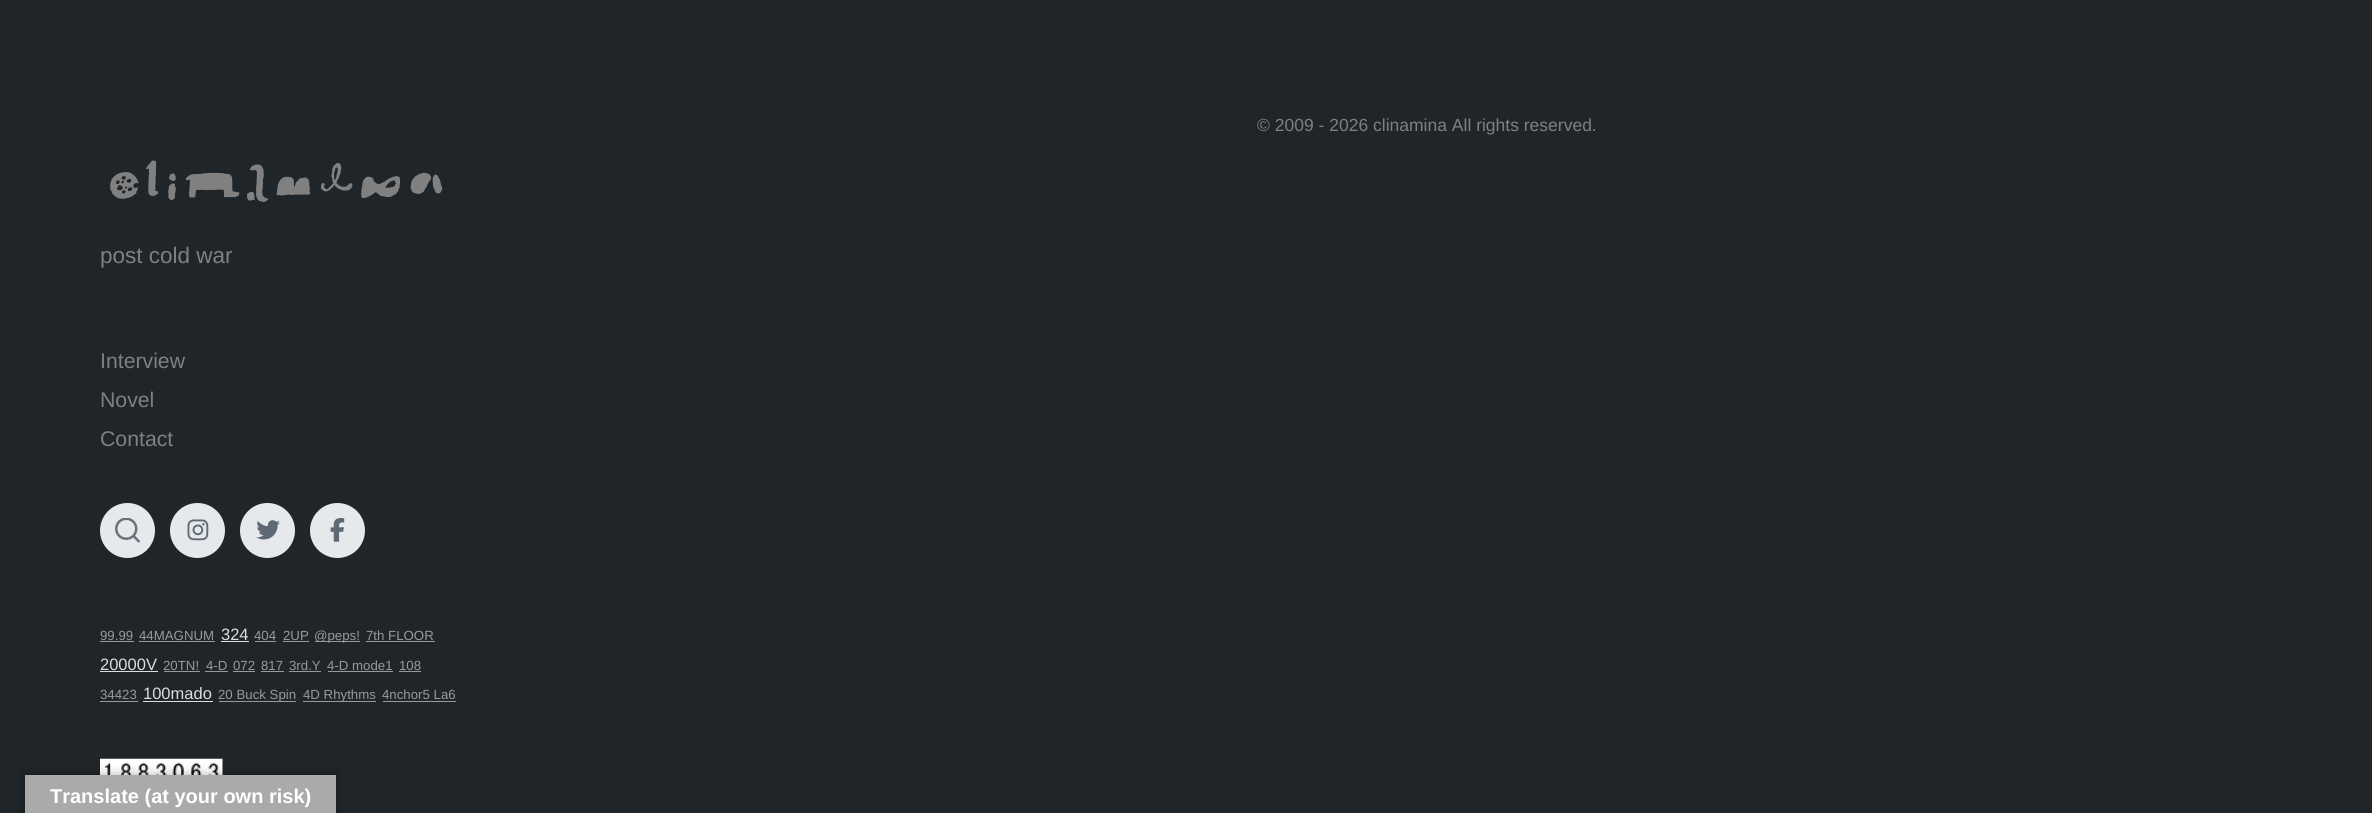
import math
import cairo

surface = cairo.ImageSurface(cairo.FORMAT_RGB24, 2372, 813)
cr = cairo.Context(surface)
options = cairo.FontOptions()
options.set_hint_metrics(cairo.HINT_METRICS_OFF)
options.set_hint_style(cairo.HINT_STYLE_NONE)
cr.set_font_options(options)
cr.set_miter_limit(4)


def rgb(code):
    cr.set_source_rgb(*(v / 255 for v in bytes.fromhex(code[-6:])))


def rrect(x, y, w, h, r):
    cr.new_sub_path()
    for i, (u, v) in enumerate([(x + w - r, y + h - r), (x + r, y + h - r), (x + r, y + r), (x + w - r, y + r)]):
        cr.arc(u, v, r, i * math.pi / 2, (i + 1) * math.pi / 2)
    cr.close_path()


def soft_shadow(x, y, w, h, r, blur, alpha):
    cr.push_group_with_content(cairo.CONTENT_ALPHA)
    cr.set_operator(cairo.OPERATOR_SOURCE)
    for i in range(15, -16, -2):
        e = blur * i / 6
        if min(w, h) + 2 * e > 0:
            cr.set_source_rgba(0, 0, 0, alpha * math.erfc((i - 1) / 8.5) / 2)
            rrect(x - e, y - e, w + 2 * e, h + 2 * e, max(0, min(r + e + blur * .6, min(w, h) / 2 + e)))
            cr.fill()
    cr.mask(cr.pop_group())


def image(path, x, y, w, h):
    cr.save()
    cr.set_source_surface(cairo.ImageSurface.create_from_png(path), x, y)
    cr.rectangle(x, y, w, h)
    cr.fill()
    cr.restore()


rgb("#202529")
cr.paint()
image("img/1.png", 110, 160, 333, 42)
rgb("#e6e9ec")
cr.arc(127.5, 530.5, 27.5, 0, 2 * math.pi)
cr.fill()
image("img/2.png", 115, 518, 25, 25)
cr.arc(197.5, 530.5, 27.5, 0, 2 * math.pi)
cr.fill()
image("img/3.png", 187, 519, 22, 22)
cr.arc(267.5, 530.5, 27.5, 0, 2 * math.pi)
cr.fill()
image("img/4.png", 256, 520, 24, 20)
cr.arc(337.5, 530.5, 27.5, 0, 2 * math.pi)
cr.fill()
image("img/5.png", 330, 518, 15, 24)
for x, y, w, h, color in [
    (100, 641, 34, 1, "#999999"),
    (139, 641, 76, 1, "#999999"),
    (221, 641, 28, 1, "#dddddd"),
    (255, 641, 21, 1, "#999999"),
    (283, 641, 26, 1, "#999999"),
    (315, 641, 45, 1, "#999999"),
    (366, 641, 69, 1, "#999999"),
    (100, 671, 58, 1, "#dddddd"),
    (164, 671, 36, 1, "#999999"),
    (205, 671, 23, 1, "#999999"),
    (233, 671, 22, 1, "#999999"),
    (261, 671, 23, 1, "#999999"),
    (289, 671, 32, 1, "#999999"),
    (328, 671, 65, 1, "#999999"),
    (399, 671, 22, 1, "#999999"),
    (100, 701, 38, 1, "#999999"),
    (143, 701, 70, 1, "#dddddd"),
    (219, 701, 77, 1, "#999999"),
    (303, 701, 73, 1, "#999999"),
    (383, 701, 73, 1, "#999999"),
]:
    rgb(color)
    cr.rectangle(x, y, w, h)
    cr.fill()
image("img/6.png", 100, 758, 123, 17)
rgb("#000000")
soft_shadow(25, 775, 311, 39, 0, 5.5, 0.3)
rgb("#aaaaaa")
cr.rectangle(25, 775, 311, 38)
cr.fill()
cr.select_font_face("Liberation Sans")
cr.set_font_size(17.5)
rgb("#808080")
cr.move_to(1257, 131)
cr.show_text("© 2009 - 2026 clinamina All rights reserved.")
cr.set_font_size(22.5)
cr.move_to(100, 263)
cr.show_text("post cold war")
cr.set_font_size(21.25)
for x, y, s in [
    (100, 368, "Interview"),
    (100, 407, "Novel"),
    (100, 446, "Contact"),
]:
    cr.move_to(x, y)
    cr.show_text(s)
cr.set_font_size(13.25)
rgb("#999999")
cr.move_to(100, 640)
cr.show_text("99.99")
cr.move_to(139, 640)
cr.show_text("44MAGNUM")
cr.set_font_size(16.5)
rgb("#dddddd")
cr.move_to(221, 640)
cr.show_text("324")
cr.set_font_size(13.25)
rgb("#999999")
for x, y, s in [
    (254, 640, "404"),
    (283, 640, "2UP"),
    (314, 640, "@peps!"),
    (366, 640, "7th FLOOR"),
]:
    cr.move_to(x, y)
    cr.show_text(s)
cr.set_font_size(16.5)
rgb("#dddddd")
cr.move_to(100, 670)
cr.show_text("20000V")
cr.set_font_size(13.25)
rgb("#999999")
for x, y, s in [
    (163, 670, "20TN!"),
    (206, 670, "4-D"),
    (233, 670, "072"),
    (261, 670, "817"),
    (289, 670, "3rd.Y"),
    (327, 670, "4-D mode1"),
    (399, 670, "108"),
    (100, 699, "34423"),
]:
    cr.move_to(x, y)
    cr.show_text(s)
cr.set_font_size(16.5)
rgb("#dddddd")
cr.move_to(143, 699)
cr.show_text("100mado")
cr.set_font_size(13.25)
rgb("#999999")
for x, y, s in [
    (218, 699, "20 Buck Spin"),
    (303, 699, "4D Rhythms"),
    (382, 699, "4nchor5 La6"),
]:
    cr.move_to(x, y)
    cr.show_text(s)
cr.select_font_face("Liberation Sans", cairo.FONT_SLANT_NORMAL, cairo.FONT_WEIGHT_BOLD)
cr.set_font_size(20)
rgb("#ffffff")
cr.move_to(50, 803)
cr.show_text("Translate (at your own risk)")
surface.write_to_png("page.png")
